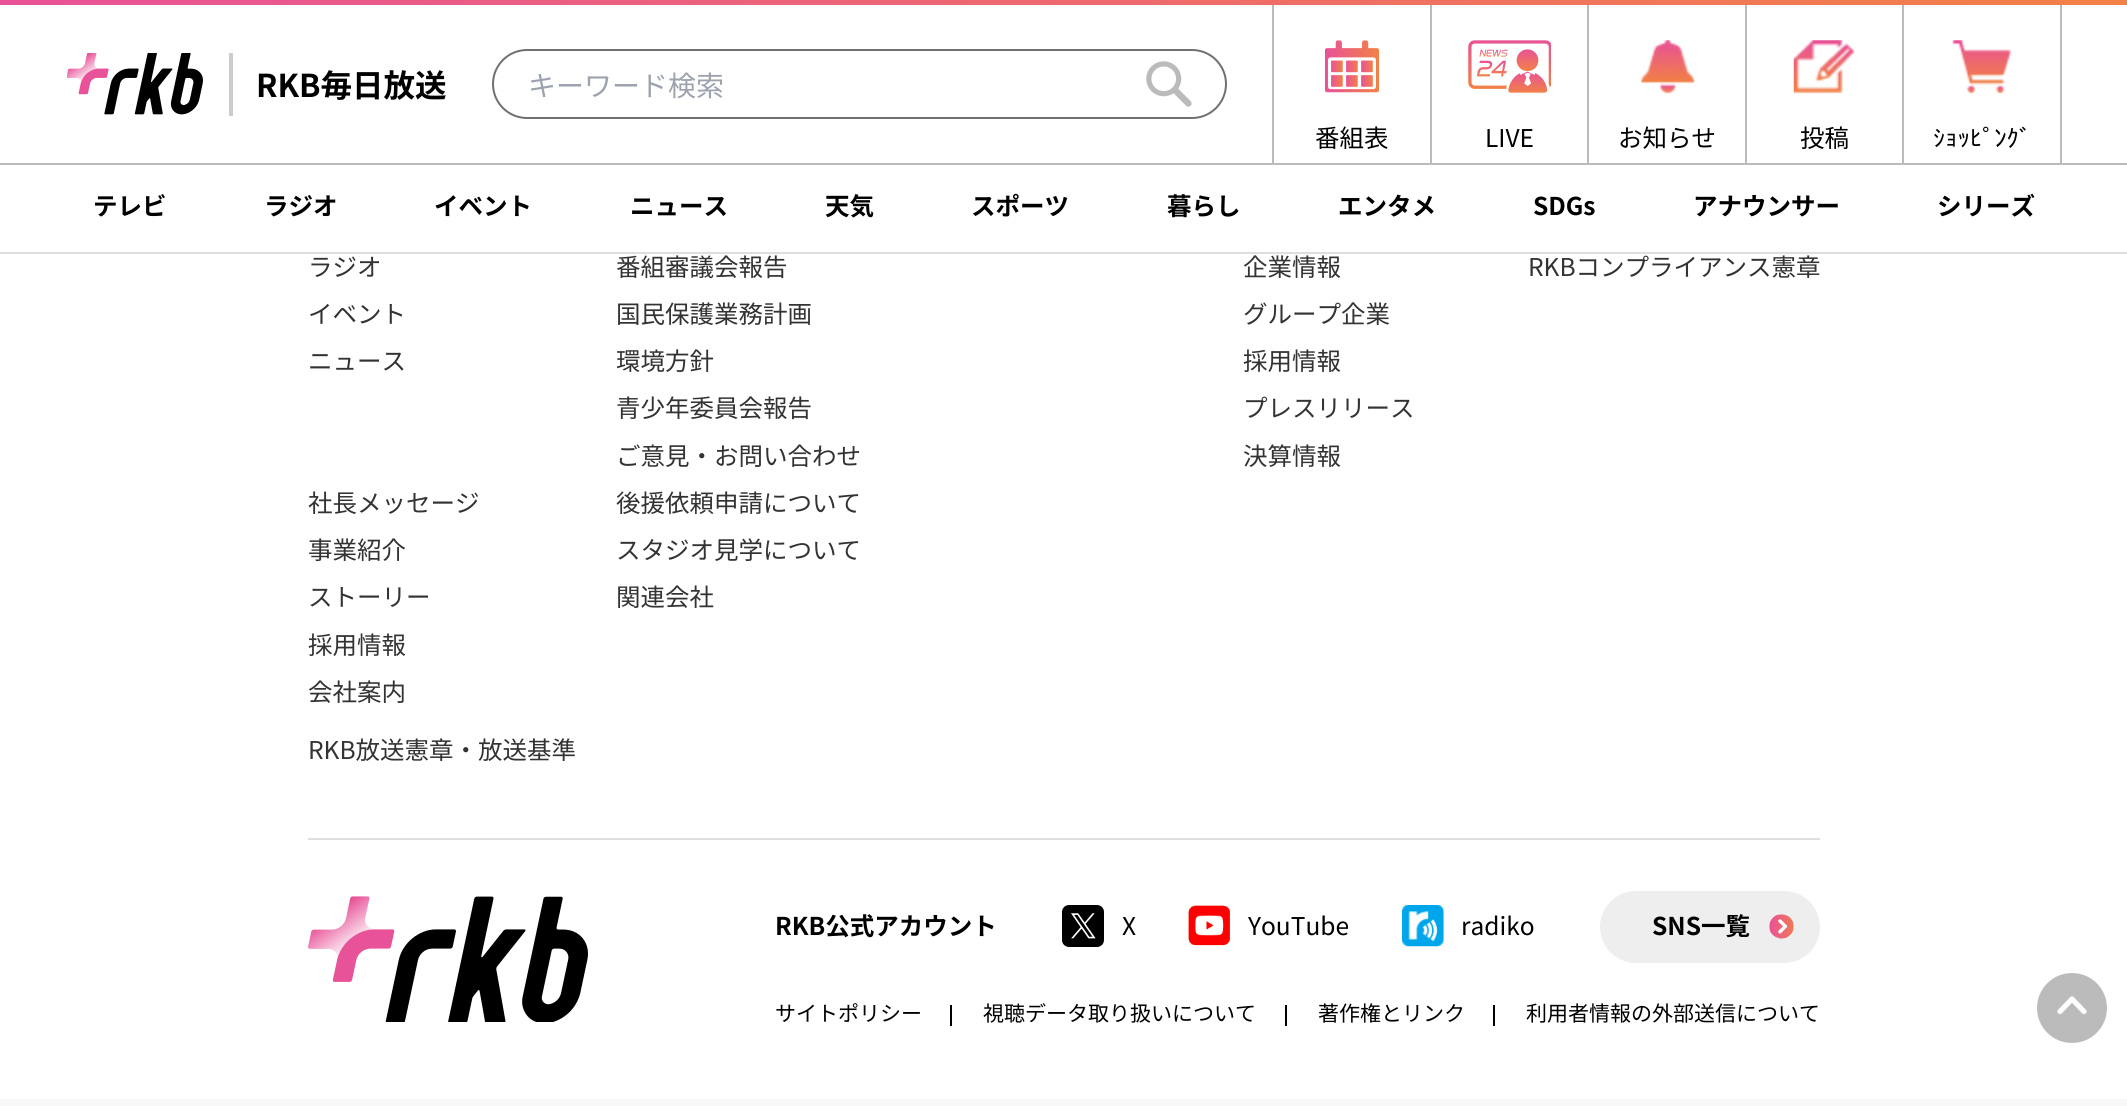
import math
import cairo

surface = cairo.ImageSurface(cairo.FORMAT_RGB24, 2127, 1106)
cr = cairo.Context(surface)
options = cairo.FontOptions()
options.set_hint_metrics(cairo.HINT_METRICS_OFF)
options.set_hint_style(cairo.HINT_STYLE_NONE)
cr.set_font_options(options)
cr.set_miter_limit(4)


def rgb(code):
    cr.set_source_rgb(*(v / 255 for v in bytes.fromhex(code[-6:])))


def rrect(x, y, w, h, r):
    cr.new_sub_path()
    for i, (u, v) in enumerate([(x + w - r, y + h - r), (x + r, y + h - r), (x + r, y + r), (x + w - r, y + r)]):
        cr.arc(u, v, r, i * math.pi / 2, (i + 1) * math.pi / 2)
    cr.close_path()


def image(path, x, y, w, h):
    cr.save()
    cr.set_source_surface(cairo.ImageSurface.create_from_png(path), x, y)
    cr.rectangle(x, y, w, h)
    cr.fill()
    cr.restore()


rgb("#ffffff")
cr.paint()
gradient = cairo.LinearGradient(0, 2.6, 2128, 2.6)
gradient.add_color_stop_rgba(0, 0.91, 0.322, 0.596, 1)
gradient.add_color_stop_rgba(1, 0.949, 0.506, 0.275, 1)
cr.set_source(gradient)
cr.rectangle(0, 0, 2127, 5)
cr.fill()
rgb("#bbbbbb")
cr.rectangle(0, 163, 2127, 2)
cr.fill()
image("img/1.png", 67, 53, 136, 62)
rgb("#cccccc")
cr.rectangle(229, 53, 4, 63)
cr.fill()
rrect(493, 50, 733, 68, 34)
rgb("#707070")
cr.stroke()
image("img/2.png", 1146, 61, 46, 46)
rgb("#bbbbbb")
cr.rectangle(1272, 5, 2, 158)
cr.fill()
cr.rectangle(1430, 5, 2, 158)
cr.fill()
image("img/3.png", 1325, 40, 54, 53)
cr.rectangle(1587, 5, 2, 158)
cr.fill()
image("img/4.png", 1468, 40, 83, 53)
cr.rectangle(1745, 5, 2, 158)
cr.fill()
image("img/5.png", 1640, 40, 55, 54)
cr.rectangle(1902, 5, 2, 158)
cr.fill()
image("img/6.png", 1793, 40, 62, 54)
cr.rectangle(2060, 5, 2, 158)
cr.fill()
image("img/7.png", 1952, 40, 59, 54)
rgb("#dedede")
cr.rectangle(0, 252, 2127, 2)
cr.fill()
rgb("#bbbbbb")
cr.arc(2072, 1008, 35, 0, 2 * math.pi)
cr.fill()
cr.new_path()
cr.move_to(2084, 1011.5)
cr.line_to(2072, 999)
cr.move_to(2072, 999)
cr.line_to(2060, 1011.5)
rgb("#ffffff")
cr.set_line_width(5.2)
cr.set_line_cap(cairo.LINE_CAP_ROUND)
cr.stroke()
rgb("#dedede")
cr.rectangle(308, 838, 1512, 2)
cr.fill()
image("img/8.png", 308, 896, 280, 126)
image("img/9.png", 1062, 905, 42, 42)
image("img/10.png", 1188, 905, 42, 41)
image("img/11.png", 1402, 905, 42, 42)
rgb("#eeeeee")
rrect(1600, 891, 220, 72, 36)
cr.fill()
image("img/12.png", 1769, 914, 25, 25)
for x, y, w, h, color in [
    (950, 1005, 2, 21, "#000000"),
    (1285, 1005, 2, 21, "#000000"),
    (1493, 1005, 2, 21, "#000000"),
    (0, 1099, 2127, 7, "#f8f8f8"),
]:
    rgb(color)
    cr.rectangle(x, y, w, h)
    cr.fill()
cr.select_font_face("Noto Sans JP", cairo.FONT_SLANT_NORMAL, cairo.FONT_WEIGHT_BOLD)
cr.set_font_size(31.5)
rgb("#000000")
cr.move_to(256, 97)
cr.show_text("RKB毎日放送")
cr.select_font_face("Noto Sans JP")
cr.set_font_size(28)
rgb("#9ca3af")
cr.move_to(528, 96)
cr.show_text("キーワード検索")
cr.set_font_size(24.5)
rgb("#000000")
for x, y, s in [
    (1315, 147, "番組表"),
    (1485, 147, "LIVE"),
    (1618, 147, "お知らせ"),
    (1800, 147, "投稿"),
]:
    cr.move_to(x, y)
    cr.show_text(s)
cr.select_font_face("IPAPGothic")
cr.move_to(1933, 147)
cr.show_text("ｼｮｯﾋﾟﾝｸﾞ")
cr.select_font_face("Noto Sans JP", cairo.FONT_SLANT_NORMAL, cairo.FONT_WEIGHT_BOLD)
for x, y, s in [
    (93, 215, "テレビ"),
    (264, 215, "ラジオ"),
    (434, 215, "イベント"),
    (630, 215, "ニュース"),
    (825, 215, "天気"),
    (971, 215, "スポーツ"),
    (1167, 215, "暮らし"),
    (1338, 215, "エンタメ"),
    (1533, 215, "SDGs"),
    (1693, 215, "アナウンサー"),
    (1937, 215, "シリーズ"),
]:
    cr.move_to(x, y)
    cr.show_text(s)
cr.select_font_face("Noto Sans JP")
rgb("#333333")
for x, y, s in [
    (308, 276, "ラジオ"),
    (616, 276, "番組審議会報告"),
    (308, 323, "イベント"),
    (616, 323, "国民保護業務計画"),
    (308, 370, "ニュース"),
    (616, 370, "環境方針"),
    (616, 417, "青少年委員会報告"),
    (616, 465, "ご意見・お問い合わせ"),
    (308, 512, "社長メッセージ"),
    (616, 512, "後援依頼申請について"),
    (308, 559, "事業紹介"),
    (616, 559, "スタジオ見学について"),
    (308, 606, "ストーリー"),
    (616, 606, "関連会社"),
    (308, 654, "採用情報"),
    (308, 701, "会社案内"),
    (308, 759, "RKB放送憲章・放送基準"),
    (1243, 276, "企業情報"),
    (1528, 276, "RKBコンプライアンス憲章"),
    (1243, 323, "グループ企業"),
    (1243, 370, "採用情報"),
    (1243, 417, "プレスリリース"),
    (1243, 465, "決算情報"),
]:
    cr.move_to(x, y)
    cr.show_text(s)
cr.select_font_face("Noto Sans JP", cairo.FONT_SLANT_NORMAL, cairo.FONT_WEIGHT_BOLD)
rgb("#000000")
cr.move_to(775, 935)
cr.show_text("RKB公式アカウント")
cr.select_font_face("Noto Sans JP")
for x, y, s in [
    (1122, 935, "X"),
    (1248, 935, "YouTube"),
    (1461, 935, "radiko"),
]:
    cr.move_to(x, y)
    cr.show_text(s)
cr.select_font_face("Noto Sans JP", cairo.FONT_SLANT_NORMAL, cairo.FONT_WEIGHT_BOLD)
cr.move_to(1652, 935)
cr.show_text("SNS一覧")
cr.select_font_face("Noto Sans JP")
cr.set_font_size(21)
for x, y, s in [
    (775, 1021, "サイトポリシー"),
    (983, 1021, "視聴データ取り扱いについて"),
    (1318, 1021, "著作権とリンク"),
    (1526, 1021, "利用者情報の外部送信について"),
]:
    cr.move_to(x, y)
    cr.show_text(s)
surface.write_to_png("page.png")
